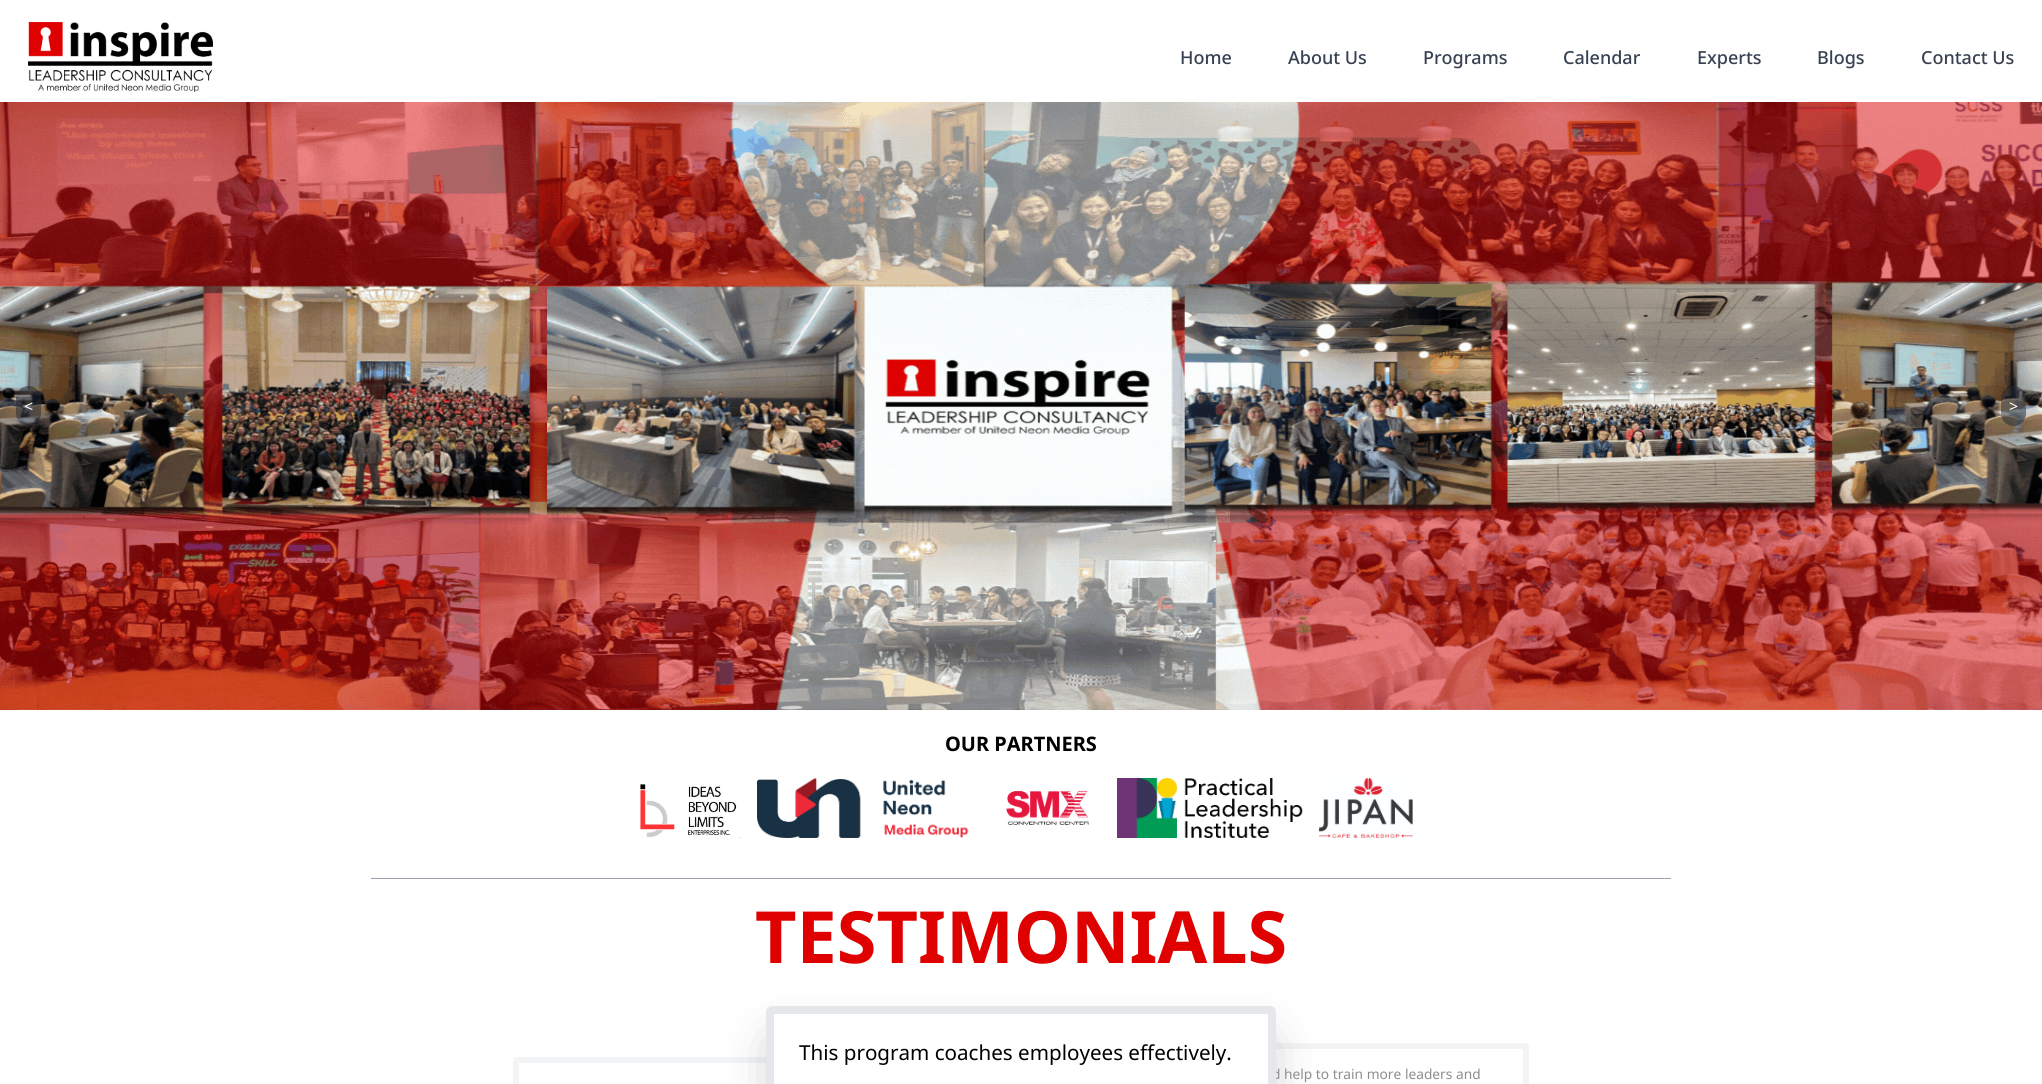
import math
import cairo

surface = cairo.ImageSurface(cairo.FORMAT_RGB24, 2042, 1084)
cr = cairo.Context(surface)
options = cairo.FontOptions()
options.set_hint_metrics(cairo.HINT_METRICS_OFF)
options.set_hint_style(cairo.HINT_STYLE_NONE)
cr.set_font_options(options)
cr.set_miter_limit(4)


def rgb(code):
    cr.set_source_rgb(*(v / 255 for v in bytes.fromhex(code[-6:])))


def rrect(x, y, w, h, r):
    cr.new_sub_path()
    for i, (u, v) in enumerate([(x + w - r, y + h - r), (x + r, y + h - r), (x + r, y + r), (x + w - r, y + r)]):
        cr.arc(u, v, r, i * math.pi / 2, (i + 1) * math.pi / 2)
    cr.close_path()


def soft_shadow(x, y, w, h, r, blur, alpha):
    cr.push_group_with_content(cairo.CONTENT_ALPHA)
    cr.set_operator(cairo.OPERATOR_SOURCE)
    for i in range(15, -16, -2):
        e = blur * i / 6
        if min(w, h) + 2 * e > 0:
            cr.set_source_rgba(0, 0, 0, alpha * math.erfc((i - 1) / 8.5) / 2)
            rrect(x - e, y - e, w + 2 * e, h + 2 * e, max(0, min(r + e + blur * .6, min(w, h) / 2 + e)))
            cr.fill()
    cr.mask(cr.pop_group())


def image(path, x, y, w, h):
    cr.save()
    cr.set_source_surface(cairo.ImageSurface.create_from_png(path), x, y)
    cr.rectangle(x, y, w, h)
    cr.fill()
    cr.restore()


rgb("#ffffff")
cr.paint()
image("img/1.png", 28, 22, 185, 70)
image("img/2.png", 0, 102, 2042, 608)
cr.set_source_rgba(0.122, 0.161, 0.216, 0.5)
rrect(16, 386, 25, 40, 12.5)
cr.fill()
rrect(2001, 386, 25, 40, 12.5)
cr.fill()
image("img/3.png", 640, 784, 101, 54)
image("img/4.png", 757, 778, 212, 60)
image("img/5.png", 1006, 790, 83, 35)
image("img/6.png", 1117, 778, 186, 60)
image("img/7.png", 1319, 778, 94, 60)
rgb("#9ca3af")
cr.rectangle(371, 878, 1300, 1)
cr.fill()
rrect(516, 1060, 334, 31, 1)
rgb("#f3f4f6")
cr.set_line_width(6)
cr.stroke()
rrect(1192, 1046, 334, 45, 1)
cr.stroke()
rgb("#000000")
soft_shadow(778, 1044, 486, 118, 0, 26, 0.25)
cr.select_font_face("Noto Sans Medium")
cr.set_font_size(18)
rgb("#374151")
for x, y, s in [
    (1180, 64, "Home"),
    (1288, 64, "About Us"),
    (1423, 64, "Programs"),
    (1563, 64, "Calendar"),
    (1697, 64, "Experts"),
    (1817, 64, "Blogs"),
    (1921, 64, "Contact Us"),
]:
    cr.move_to(x, y)
    cr.show_text(s)
cr.select_font_face("Noto Sans")
cr.set_font_size(16)
rgb("#ffffff")
cr.move_to(24, 412)
cr.show_text("<")
cr.move_to(2009, 412)
cr.show_text(">")
cr.select_font_face("Noto Sans", cairo.FONT_SLANT_NORMAL, cairo.FONT_WEIGHT_BOLD)
cr.set_font_size(20)
rgb("#000000")
cr.move_to(945, 751)
cr.show_text("OUR PARTNERS")
cr.set_font_size(72)
rgb("#df0000")
cr.move_to(755, 963)
cr.show_text("TESTIMONIALS")
cr.select_font_face("Noto Sans")
cr.set_font_size(13.75)
rgb("#8e8e8e")
cr.move_to(1272, 1079)
cr.show_text("d help to train more leaders and")
rgb("#ffffff")
rrect(770, 1010, 502, 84, 2)
cr.fill_preserve()
rgb("#e5e7eb")
cr.set_line_width(8)
cr.stroke()
cr.set_font_size(20.6)
rgb("#000000")
cr.move_to(799, 1060)
cr.show_text("This program coaches employees effectively.")
surface.write_to_png("page.png")
